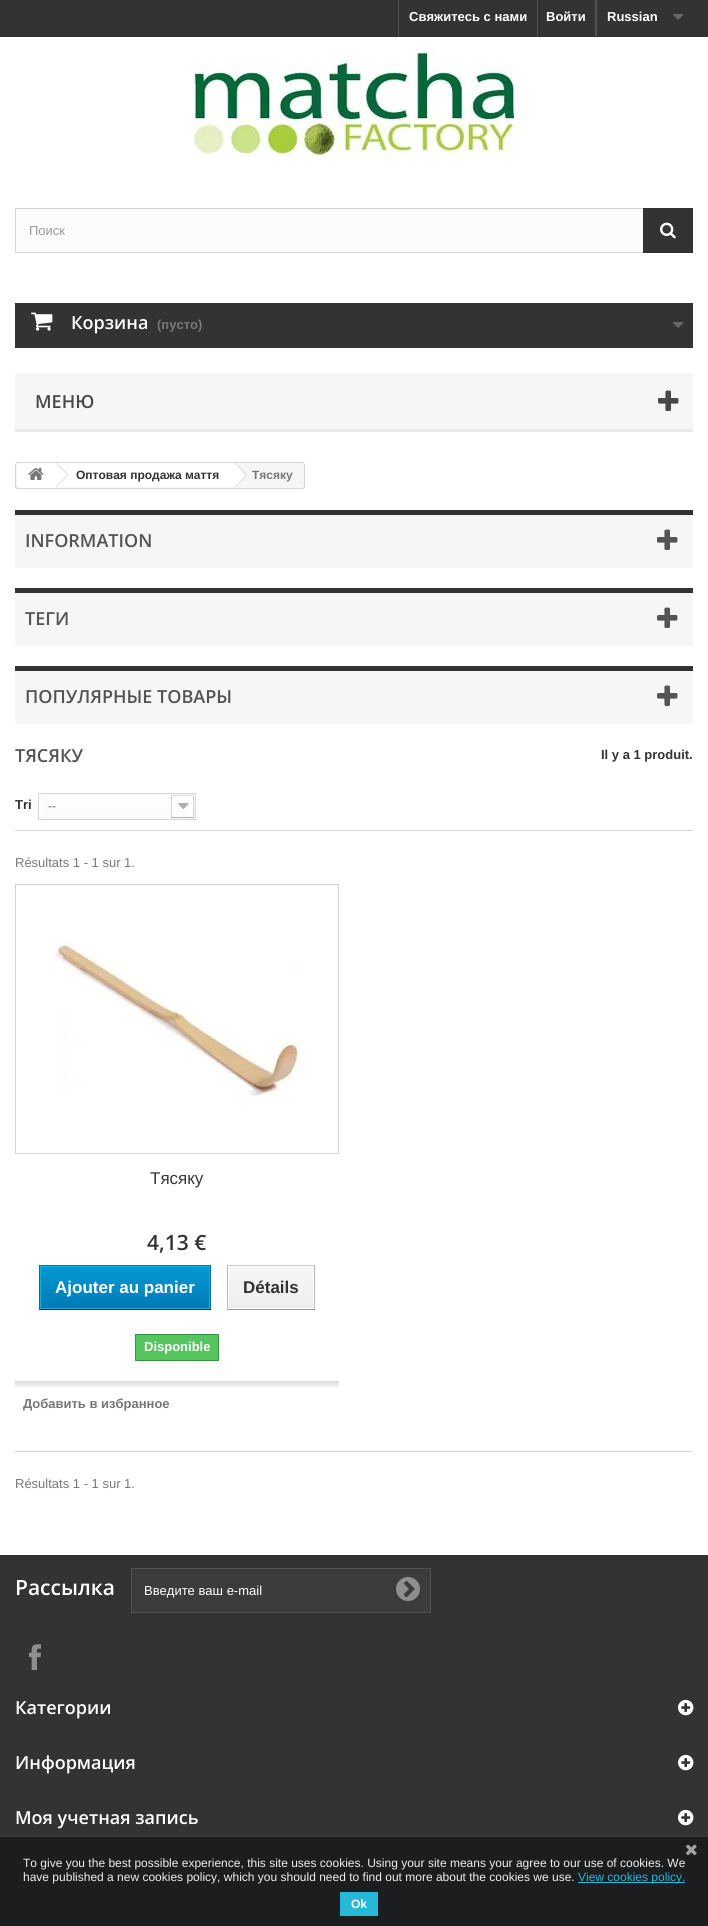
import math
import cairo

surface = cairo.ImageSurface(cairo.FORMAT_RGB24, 708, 1926)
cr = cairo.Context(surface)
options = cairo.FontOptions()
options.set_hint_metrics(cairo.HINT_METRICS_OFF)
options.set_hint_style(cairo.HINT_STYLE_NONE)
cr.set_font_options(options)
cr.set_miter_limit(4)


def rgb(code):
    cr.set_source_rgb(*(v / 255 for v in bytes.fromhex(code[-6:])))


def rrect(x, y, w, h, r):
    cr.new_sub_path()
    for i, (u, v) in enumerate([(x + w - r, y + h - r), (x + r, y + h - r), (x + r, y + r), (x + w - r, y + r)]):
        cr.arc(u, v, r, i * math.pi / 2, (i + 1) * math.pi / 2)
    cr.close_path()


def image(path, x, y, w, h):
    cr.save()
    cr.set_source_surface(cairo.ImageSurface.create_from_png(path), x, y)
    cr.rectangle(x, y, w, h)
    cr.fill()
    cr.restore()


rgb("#ffffff")
cr.paint()
for x, y, w, h, color in [
    (0, 0, 708, 37, "#333333"),
    (398, 0, 1, 37, "#515151"),
    (595, 0, 1, 37, "#515151"),
    (537, 0, 1, 37, "#515151"),
    (596, 0, 1, 36, "#515151"),
]:
    rgb(color)
    cr.rectangle(x, y, w, h)
    cr.fill()
image("img/1.png", 673, 14, 11, 6)
image("img/2.png", 194, 52, 320, 106)
rgb("#fbfbfb")
cr.rectangle(16, 209, 627, 43)
cr.fill()
cr.rectangle(15.5, 208.5, 677, 44)
rgb("#d6d4d4")
cr.set_line_width(1)
cr.stroke()
rgb("#333333")
cr.rectangle(643, 208, 50, 45)
cr.fill()
image("img/3.png", 660, 222, 16, 17)
cr.rectangle(15, 303, 678, 45)
cr.fill()
image("img/4.png", 31, 312, 22, 19)
image("img/1.png", 673, 322, 11, 6)
rgb("#f6f6f6")
cr.rectangle(15, 373, 678, 56)
cr.fill()
rgb("#e9e9e9")
cr.rectangle(15, 429, 678, 3)
cr.fill()
image("img/5.png", 658, 390, 21, 21)
rgb("#f6f6f6")
rrect(15.5, 462.5, 289, 26, 2.5)
cr.fill_preserve()
rgb("#d6d4d4")
cr.stroke()
rgb("#ffffff")
cr.new_path()
cr.move_to(20, 463)
cr.line_to(55, 463)
cr.line_to(55, 488)
cr.line_to(20, 488)
cr.curve_to(18.5, 488, 17, 486.5, 17, 485)
cr.line_to(17, 466)
cr.curve_to(17, 464.5, 18.5, 463, 20, 463)
cr.close_path()
cr.fill()
image("img/6.png", 28, 467, 16, 13)
cr.rectangle(55, 463, 179, 24)
cr.fill()
rgb("#d6d4d4")
cr.new_path()
cr.move_to(56.5, 463)
cr.line_to(68, 474.5)
cr.line_to(67.5, 475)
cr.line_to(56, 463.5)
cr.close_path()
cr.move_to(67.5, 475)
cr.line_to(68, 475.5)
cr.line_to(56.5, 487)
cr.line_to(56, 486.5)
cr.close_path()
cr.fill()
rgb("#ffffff")
cr.new_path()
cr.move_to(236.5, 463.5)
cr.line_to(246, 473.5)
cr.curve_to(247, 474.5, 247, 475.5, 246, 476.5)
cr.line_to(236.5, 486.5)
cr.curve_to(235.5, 487, 234.5, 487, 233.5, 486.5)
cr.line_to(223.5, 476.5)
cr.curve_to(223, 475.5, 223, 474.5, 223.5, 473.5)
cr.line_to(233.5, 463.5)
cr.curve_to(234.5, 463, 235.5, 463, 236.5, 463.5)
cr.close_path()
cr.fill()
rgb("#d6d4d4")
cr.new_path()
cr.move_to(235.5, 463)
cr.line_to(247, 474.5)
cr.line_to(246, 475)
cr.line_to(235, 463.5)
cr.close_path()
cr.move_to(246, 475)
cr.line_to(247, 475.5)
cr.line_to(235.5, 487)
cr.line_to(235, 486.5)
cr.close_path()
cr.fill()
rgb("#f6f6f6")
cr.rectangle(15, 515, 678, 53)
cr.fill()
rgb("#333333")
cr.rectangle(15, 510, 678, 5)
cr.fill()
image("img/7.png", 657, 529, 21, 21)
rgb("#f6f6f6")
cr.rectangle(15, 593, 678, 53)
cr.fill()
rgb("#333333")
cr.rectangle(15, 588, 678, 5)
cr.fill()
image("img/7.png", 657, 607, 21, 21)
rgb("#f6f6f6")
cr.rectangle(15, 671, 678, 53)
cr.fill()
rgb("#333333")
cr.rectangle(15, 666, 678, 5)
cr.fill()
image("img/7.png", 657, 685, 21, 21)
rgb("#d6d4d4")
cr.rectangle(15, 830, 678, 1)
cr.fill()
image("img/8.png", 38, 793, 10, 27)
image("img/9.png", 48, 793, 148, 27)
cr.rectangle(15.5, 884.5, 323, 269)
cr.stroke()
image("img/10.png", 52, 941, 250, 157)
for x, y, w, h, color in [
    (39, 1265, 172, 1, "#0079b6"),
    (210, 1265, 1, 45, "#006fa8"),
    (39, 1309, 172, 1, "#012740"),
    (39, 1265, 1, 45, "#006fa8"),
]:
    rgb(color)
    cr.rectangle(x, y, w, h)
    cr.fill()
gradient = cairo.LinearGradient(125, 1267, 125, 1308)
gradient.add_color_stop_rgba(0, 0, 0.604, 0.816, 1)
gradient.add_color_stop_rgba(1, 0, 0.478, 0.718, 1)
cr.set_source(gradient)
cr.rectangle(41, 1267, 168, 41)
cr.fill()
cr.rectangle(40.5, 1266.5, 169, 42)
rgb("#06b2e6")
cr.stroke()
for x, y, w, h, color in [
    (227, 1265, 88, 1, "#cacaca"),
    (314, 1265, 1, 45, "#b7b7b7"),
    (227, 1309, 88, 1, "#9a9a9a"),
    (227, 1265, 1, 45, "#b7b7b7"),
]:
    rgb(color)
    cr.rectangle(x, y, w, h)
    cr.fill()
gradient = cairo.LinearGradient(271, 1267, 271, 1308)
gradient.add_color_stop_rgba(0, 0.969, 0.969, 0.969, 1)
gradient.add_color_stop_rgba(1, 0.929, 0.929, 0.929, 1)
cr.set_source(gradient)
cr.rectangle(229, 1267, 84, 41)
cr.fill()
rgb("#55c65e")
cr.rectangle(135.5, 1334.5, 83, 26)
cr.fill_preserve()
rgb("#36943e")
cr.stroke()
image("img/11.png", 15, 1381, 324, 7)
rgb("#d6d4d4")
cr.rectangle(15, 1451, 678, 1)
cr.fill()
rgb("#333333")
cr.rectangle(0, 1555, 708, 282)
cr.fill()
rgb("#3c3c3c")
cr.rectangle(131.5, 1568.5, 299, 44)
cr.fill_preserve()
rgb("#515151")
cr.stroke()
image("img/12.png", 396, 1577, 24, 24)
image("img/13.png", 29, 1644, 12, 26)
image("img/14.png", 678, 1699, 16, 17)
image("img/14.png", 678, 1754, 16, 17)
image("img/14.png", 678, 1809, 16, 17)
rgb("#1b1d1f")
cr.rectangle(0, 1837, 708, 89)
cr.fill()
image("img/15.png", 686, 1844, 11, 12)
rgb("#25b9d7")
cr.rectangle(578, 1882, 107, 1)
cr.fill()
cr.rectangle(340, 1892, 38, 24)
cr.fill()
cr.select_font_face("Liberation Sans", cairo.FONT_SLANT_NORMAL, cairo.FONT_WEIGHT_BOLD)
cr.set_font_size(13)
rgb("#ffffff")
for x, y, s in [
    (409, 21, "Свяжитесь с нами"),
    (546, 21, "Войти"),
    (607, 21, "Russian"),
]:
    cr.move_to(x, y)
    cr.show_text(s)
cr.select_font_face("Liberation Sans")
rgb("#999999")
cr.move_to(29, 235)
cr.show_text("Поиск")
cr.select_font_face("Open Sans SemiBold")
cr.set_font_size(18)
rgb("#ffffff")
cr.move_to(71, 329)
cr.show_text("Корзина")
cr.select_font_face("Liberation Sans", cairo.FONT_SLANT_NORMAL, cairo.FONT_WEIGHT_BOLD)
cr.set_font_size(13)
rgb("#777777")
cr.move_to(157, 329)
cr.show_text("(пусто)")
cr.select_font_face("Open Sans SemiBold")
cr.set_font_size(18)
rgb("#484848")
cr.move_to(35, 408)
cr.show_text("МЕНЮ")
cr.select_font_face("Liberation Sans", cairo.FONT_SLANT_NORMAL, cairo.FONT_WEIGHT_BOLD)
cr.set_font_size(12)
rgb("#333333")
cr.move_to(76, 479)
cr.show_text("Оптовая продажа маття")
rgb("#777777")
cr.move_to(252, 479)
cr.show_text("Тясяку")
cr.select_font_face("Open Sans SemiBold")
cr.set_font_size(18)
rgb("#555454")
for x, y, s in [
    (25, 547, "INFORMATION"),
    (25, 625, "ТЕГИ"),
    (25, 703, "ПОПУЛЯРНЫЕ ТОВАРЫ"),
    (15, 762, "ТЯСЯКУ"),
]:
    cr.move_to(x, y)
    cr.show_text(s)
cr.select_font_face("Liberation Sans", cairo.FONT_SLANT_NORMAL, cairo.FONT_WEIGHT_BOLD)
cr.set_font_size(13)
rgb("#333333")
cr.move_to(601, 759)
cr.show_text("Il y a 1 produit.")
cr.move_to(15, 809)
cr.show_text("Tri")
cr.select_font_face("Liberation Sans")
cr.set_font_size(12)
rgb("#666666")
cr.move_to(48, 810)
cr.show_text("--")
cr.set_font_size(13)
rgb("#777777")
cr.move_to(15, 867)
cr.show_text("Résultats 1 - 1 sur 1.")
cr.set_font_size(17)
rgb("#3a3939")
cr.move_to(150, 1184)
cr.show_text("Тясяку")
cr.select_font_face("Open Sans SemiBold")
cr.set_font_size(21)
rgb("#333333")
cr.move_to(147, 1250)
cr.show_text("4,13 €")
cr.select_font_face("Liberation Sans", cairo.FONT_SLANT_NORMAL, cairo.FONT_WEIGHT_BOLD)
cr.set_font_size(17)
rgb("#ffffff")
cr.move_to(55, 1293)
cr.show_text("Ajouter au panier")
rgb("#333333")
cr.move_to(243, 1293)
cr.show_text("Détails")
cr.set_font_size(13)
rgb("#ffffff")
cr.move_to(144, 1351)
cr.show_text("Disponible")
rgb("#777777")
cr.move_to(23, 1408)
cr.show_text("Добавить в избранное")
cr.select_font_face("Liberation Sans")
cr.move_to(15, 1488)
cr.show_text("Résultats 1 - 1 sur 1.")
cr.select_font_face("Open Sans SemiBold")
cr.set_font_size(21)
rgb("#ffffff")
cr.move_to(15, 1595)
cr.show_text("Рассылка")
cr.select_font_face("Liberation Sans")
cr.set_font_size(13)
cr.move_to(144, 1595)
cr.show_text("Введите ваш e-mail")
cr.select_font_face("Open Sans SemiBold")
cr.set_font_size(18)
for x, y, s in [
    (15, 1714, "Категории"),
    (15, 1769, "Информация"),
    (15, 1824, "Моя учетная запись"),
]:
    cr.move_to(x, y)
    cr.show_text(s)
cr.select_font_face("Liberation Sans")
cr.set_font_size(12)
rgb("#efefef")
cr.move_to(23, 1867)
cr.show_text("To give you the best possible experience, this site uses cookies. Using your site means your agree to our use of cookies. We")
cr.move_to(23, 1881)
cr.show_text("have published a new cookies policy, which you should need to find out more about the cookies we use.")
rgb("#25b9d7")
cr.move_to(578, 1881)
cr.show_text("View cookies policy.")
cr.select_font_face("Liberation Sans", cairo.FONT_SLANT_NORMAL, cairo.FONT_WEIGHT_BOLD)
rgb("#ffffff")
cr.move_to(351, 1908)
cr.show_text("Ok")
surface.write_to_png("page.png")
